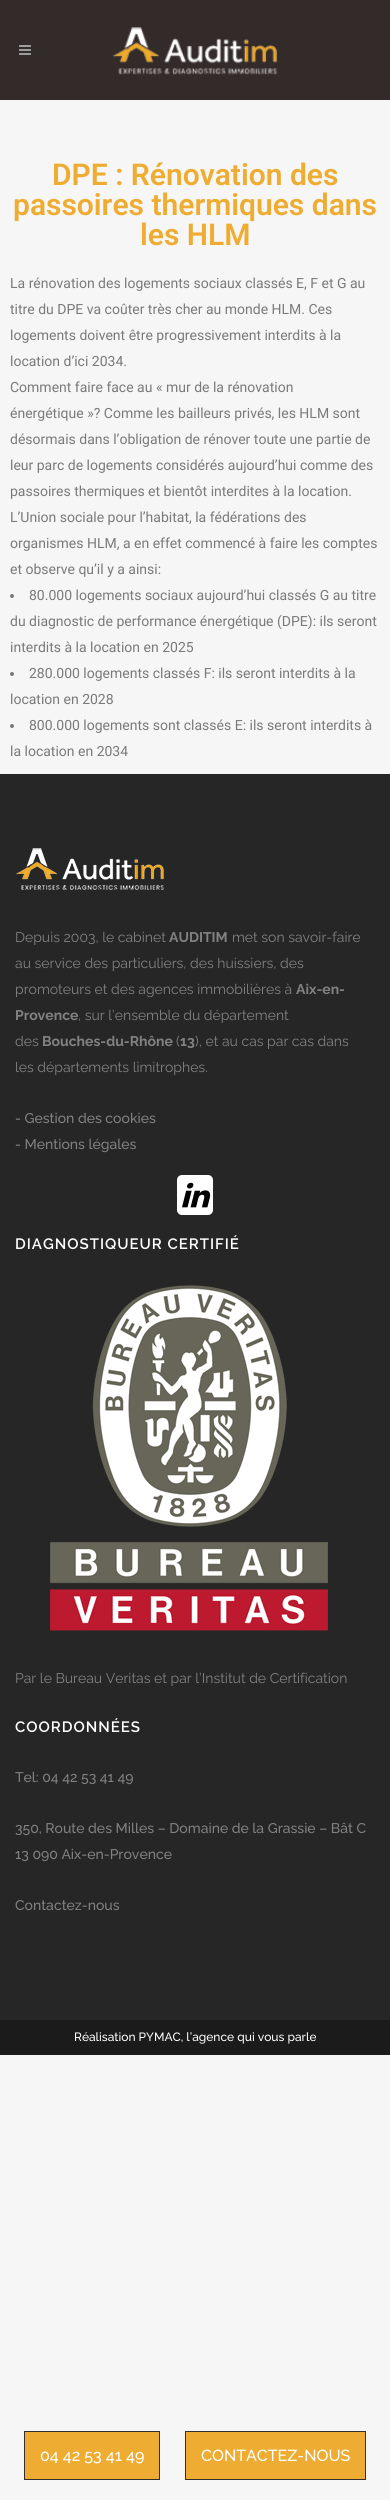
import math
import cairo

surface = cairo.ImageSurface(cairo.FORMAT_RGB24, 390, 2500)
cr = cairo.Context(surface)
options = cairo.FontOptions()
options.set_hint_metrics(cairo.HINT_METRICS_OFF)
options.set_hint_style(cairo.HINT_STYLE_NONE)
cr.set_font_options(options)
cr.set_miter_limit(4)


def rgb(code):
    cr.set_source_rgb(*(v / 255 for v in bytes.fromhex(code[-6:])))


def tracked(x, y, s, letter, word):
    cr.move_to(x, y)
    for ch in s:
        cr.show_text(ch)
        cr.rel_move_to(letter + word * (ch == ' '), 0)


def rrect(x, y, w, h, r):
    cr.new_sub_path()
    for i, (u, v) in enumerate([(x + w - r, y + h - r), (x + r, y + h - r), (x + r, y + r), (x + w - r, y + r)]):
        cr.arc(u, v, r, i * math.pi / 2, (i + 1) * math.pi / 2)
    cr.close_path()


def image(path, x, y, w, h):
    cr.save()
    cr.set_source_surface(cairo.ImageSurface.create_from_png(path), x, y)
    cr.rectangle(x, y, w, h)
    cr.fill()
    cr.restore()


rgb("#f6f6f6")
cr.paint()
rgb("#332b29")
cr.rectangle(0, 0, 390, 100)
cr.fill()
image("img/1.png", 19, 45, 12, 10)
image("img/2.png", 113, 27, 165, 48)
rgb("#7a7a7a")
cr.arc(12, 596, 2, 0, 2 * math.pi)
cr.fill()
cr.arc(12, 674, 2, 0, 2 * math.pi)
cr.fill()
cr.arc(12, 726, 2, 0, 2 * math.pi)
cr.fill()
rgb("#262626")
cr.rectangle(0, 774, 390, 1246)
cr.fill()
image("img/3.png", 16, 848, 148, 42)
rgb("#ffffff")
rrect(177, 1175, 36, 40, 5)
cr.fill()
image("img/4.png", 182, 1182, 29, 26)
image("img/5.png", 50, 1285, 278, 346)
rgb("#1b1b1b")
cr.rectangle(0, 2020, 390, 35)
cr.fill()
rgb("#eead32")
cr.rectangle(24.5, 2431.5, 135, 48)
cr.fill_preserve()
rgb("#303030")
cr.set_line_width(1)
cr.stroke()
rgb("#eead32")
cr.rectangle(185.5, 2431.5, 180, 48)
cr.fill_preserve()
rgb("#303030")
cr.stroke()
cr.select_font_face("Roboto SemiBold")
cr.set_font_size(30)
rgb("#eead32")
for x, y, s in [
    (52, 185, "DPE : Rénovation des"),
    (13, 215, "passoires thermiques dans"),
    (140, 245, "les HLM"),
]:
    cr.move_to(x, y)
    cr.show_text(s)
cr.select_font_face("Roboto")
cr.set_font_size(14)
rgb("#7a7a7a")
for x, y, s in [
    (10, 288, "La rénovation des logements sociaux classés E, F et G au"),
    (10, 314, "titre du DPE va coûter très cher au monde HLM. Ces"),
    (10, 340, "logements doivent être progressivement interdits à la"),
    (10, 366, "location d’ici 2034."),
    (10, 392, "Comment faire face au « mur de la rénovation"),
    (10, 418, "énergétique »? Comme les bailleurs privés, les HLM sont"),
    (10, 444, "désormais dans l’obligation de rénover toute une partie de"),
    (10, 470, "leur parc de logements considérés aujourd’hui comme des"),
    (10, 496, "passoires thermiques et bientôt interdites à la location."),
    (10, 522, "L’Union sociale pour l’habitat, la fédérations des"),
    (10, 548, "organismes HLM, a en effet commencé à faire les comptes"),
    (10, 574, "et observe qu’il y a ainsi:"),
    (29, 600, "80.000 logements sociaux aujourd’hui classés G au titre"),
    (10, 626, "du diagnostic de performance énergétique (DPE): ils seront"),
    (10, 652, "interdits à la location en 2025"),
    (29, 678, "280.000 logements classés F: ils seront interdits à la"),
    (10, 704, "location en 2028"),
    (29, 730, "800.000 logements sont classés E: ils seront interdits à"),
    (10, 756, "la location en 2034"),
]:
    cr.move_to(x, y)
    cr.show_text(s)
cr.select_font_face("Raleway")
rgb("#818181")
cr.move_to(15, 942)
cr.show_text("Depuis 2003, le cabinet")
cr.select_font_face("Raleway", cairo.FONT_SLANT_NORMAL, cairo.FONT_WEIGHT_BOLD)
cr.move_to(169, 942)
cr.show_text("AUDITIM")
cr.select_font_face("Raleway")
for x, y, s in [
    (232, 942, "met son savoir-faire"),
    (15, 968, "au service des particuliers, des huissiers, des"),
    (15, 994, "promoteurs et des agences immobilières à"),
]:
    cr.move_to(x, y)
    cr.show_text(s)
cr.select_font_face("Raleway", cairo.FONT_SLANT_NORMAL, cairo.FONT_WEIGHT_BOLD)
cr.move_to(296, 994)
cr.show_text("Aix-en-")
cr.move_to(15, 1020)
cr.show_text("Provence")
cr.select_font_face("Raleway")
cr.move_to(78, 1020)
cr.show_text(", sur l’ensemble du département")
cr.move_to(15, 1046)
cr.show_text("des")
cr.select_font_face("Raleway", cairo.FONT_SLANT_NORMAL, cairo.FONT_WEIGHT_BOLD)
cr.move_to(42, 1046)
cr.show_text("Bouches-du-Rhône")
cr.select_font_face("Raleway")
cr.move_to(176, 1046)
cr.show_text("(")
cr.select_font_face("Raleway", cairo.FONT_SLANT_NORMAL, cairo.FONT_WEIGHT_BOLD)
cr.move_to(180, 1046)
cr.show_text("13")
cr.select_font_face("Raleway")
cr.move_to(195, 1046)
cr.show_text("), et au cas par cas dans")
cr.move_to(15, 1072)
cr.show_text("les départements limitrophes.")
cr.select_font_face("Raleway Medium")
cr.move_to(15, 1123)
cr.show_text("- Gestion des cookies")
cr.move_to(15, 1149)
cr.show_text("- Mentions légales")
cr.select_font_face("Raleway SemiBold")
cr.set_font_size(15)
rgb("#ffffff")
tracked(15, 1249, "DIAGNOSTIQUEUR CERTIFIÉ", 1, 0)
cr.select_font_face("Raleway")
cr.set_font_size(14)
rgb("#818181")
cr.move_to(15, 1683)
cr.show_text("Par le Bureau Veritas et par l’Institut de Certification")
cr.select_font_face("Raleway SemiBold")
cr.set_font_size(15)
rgb("#ffffff")
tracked(15, 1732, "COORDONNÉES", 1, 0)
cr.select_font_face("Raleway Medium")
cr.set_font_size(14)
rgb("#818181")
for x, y, s in [
    (15, 1782, "Tel: 04 42 53 41 49"),
    (15, 1833, "350, Route des Milles – Domaine de la Grassie – Bât C"),
    (15, 1859, "13 090 Aix-en-Provence"),
    (15, 1910, "Contactez-nous"),
]:
    cr.move_to(x, y)
    cr.show_text(s)
cr.set_font_size(12)
rgb("#ffffff")
cr.move_to(74, 2041)
cr.show_text("Réalisation PYMAC, l’agence qui vous parle")
cr.set_font_size(16)
cr.move_to(40, 2461)
cr.show_text("04 42 53 41 49")
cr.move_to(201, 2461)
cr.show_text("CONTACTEZ-NOUS")
surface.write_to_png("page.png")
